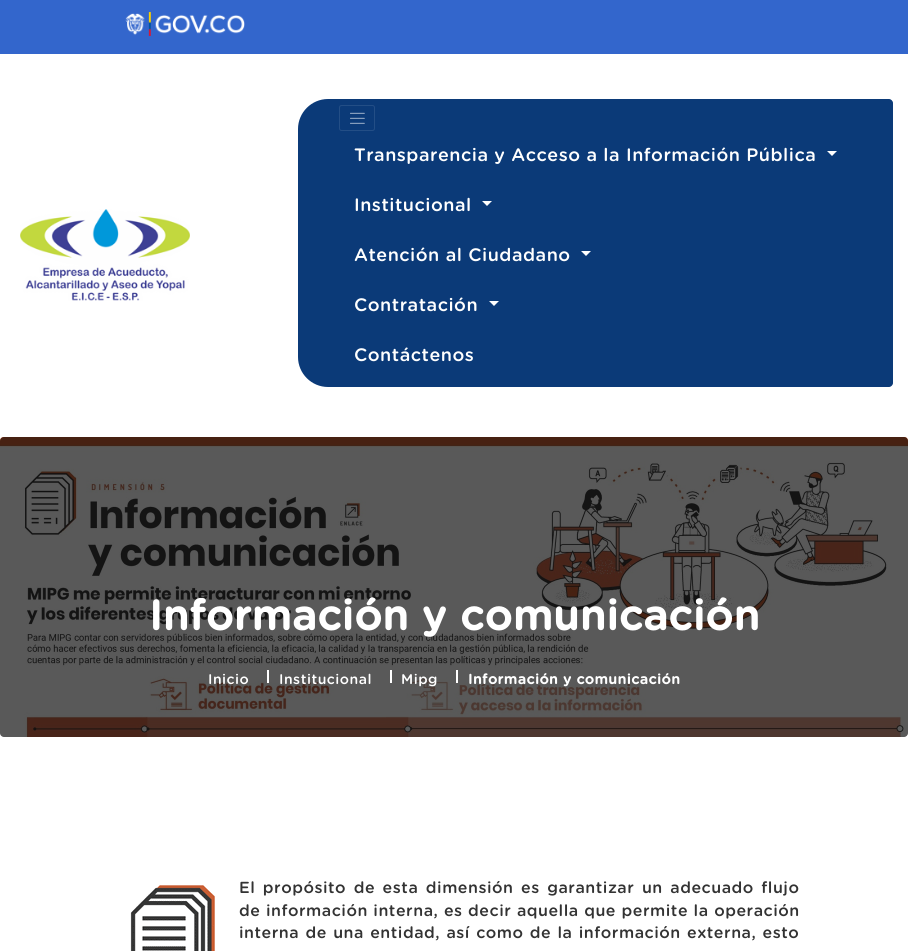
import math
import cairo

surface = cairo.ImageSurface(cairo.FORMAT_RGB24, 908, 951)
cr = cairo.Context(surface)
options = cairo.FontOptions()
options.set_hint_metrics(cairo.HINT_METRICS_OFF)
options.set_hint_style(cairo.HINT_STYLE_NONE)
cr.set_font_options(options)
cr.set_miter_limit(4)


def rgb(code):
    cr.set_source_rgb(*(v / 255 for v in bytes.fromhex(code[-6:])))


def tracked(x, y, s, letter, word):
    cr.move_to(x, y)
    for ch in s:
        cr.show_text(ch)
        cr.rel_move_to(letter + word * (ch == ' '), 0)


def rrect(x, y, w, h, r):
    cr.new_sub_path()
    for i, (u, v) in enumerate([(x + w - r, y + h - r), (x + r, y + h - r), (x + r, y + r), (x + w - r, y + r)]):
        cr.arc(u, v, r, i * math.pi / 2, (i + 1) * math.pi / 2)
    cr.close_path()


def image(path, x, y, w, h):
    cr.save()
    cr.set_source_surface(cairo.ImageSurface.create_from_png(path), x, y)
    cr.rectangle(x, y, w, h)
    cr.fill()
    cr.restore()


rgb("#ffffff")
cr.paint()
rgb("#3366cc")
cr.rectangle(0, 0, 908, 54)
cr.fill()
image("img/1.png", 125, 12, 120, 24)
image("img/2.png", 20, 209, 170, 92)
rgb("#0b3a78")
cr.new_path()
cr.move_to(328, 99)
cr.line_to(889, 99)
cr.curve_to(891, 99, 893, 101, 893, 103)
cr.line_to(893, 383)
cr.curve_to(893, 385, 891, 387, 889, 387)
cr.line_to(328, 387)
cr.curve_to(311.5, 387, 298, 373.5, 298, 357)
cr.line_to(298, 129)
cr.curve_to(298, 112.5, 311.5, 99, 328, 99)
cr.close_path()
cr.fill()
rrect(339.5, 105.5, 35, 25, 2)
rgb("#234e86")
cr.set_line_width(1)
cr.stroke()
image("img/3.png", 350, 112, 15, 12)
rgb("#ffffff")
cr.new_path()
cr.move_to(827, 151)
cr.line_to(837, 151)
cr.line_to(832, 156)
cr.close_path()
cr.fill()
cr.new_path()
cr.move_to(482, 201)
cr.line_to(492, 201)
cr.line_to(487, 206)
cr.close_path()
cr.fill()
cr.new_path()
cr.move_to(581, 251)
cr.line_to(591, 251)
cr.line_to(586, 256)
cr.close_path()
cr.fill()
cr.new_path()
cr.move_to(489, 301)
cr.line_to(499, 301)
cr.line_to(494, 306)
cr.close_path()
cr.fill()
image("img/4.png", 0, 437, 908, 300)
cr.set_source_rgba(0, 0, 0, 0.65)
rrect(0, 437, 908, 300, 4)
cr.fill()
for x, y, w, h, color in [
    (267, 670, 2, 13, "#ffffff"),
    (390, 670, 2, 13, "#ffffff"),
    (456, 670, 2, 13, "#ffffff"),
]:
    rgb(color)
    cr.rectangle(x, y, w, h)
    cr.fill()
image("img/5.png", 130, 885, 85, 66)
cr.select_font_face("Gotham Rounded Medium")
cr.set_font_size(18)
for x, y, s in [
    (354, 161, "Transparencia y Acceso a la Información Pública"),
    (354, 211, "Institucional"),
    (354, 261, "Atención al Ciudadano"),
    (354, 311, "Contratación"),
    (354, 361, "Contáctenos"),
]:
    tracked(x, y, s, 0.5, 0)
cr.select_font_face("Gotham Rounded", cairo.FONT_SLANT_NORMAL, cairo.FONT_WEIGHT_BOLD)
cr.set_font_size(42)
tracked(149, 630, "Información y comunicación", 0.5, 0)
cr.select_font_face("Gotham Rounded Medium")
cr.set_font_size(14)
for x, y, s in [
    (208, 684, "Inicio"),
    (279, 684, "Institucional"),
    (401, 684, "Mipg"),
]:
    tracked(x, y, s, 0.5, 0)
cr.select_font_face("Gotham Rounded", cairo.FONT_SLANT_NORMAL, cairo.FONT_WEIGHT_BOLD)
tracked(468, 684, "Información y comunicación", 0.5, 0)
cr.select_font_face("Gotham Rounded Medium")
cr.set_font_size(16)
rgb("#333333")
tracked(239, 893, "El propósito de esta dimensión es garantizar un adecuado flujo", 0.5, 2.25)
tracked(239, 916, "de información interna, es decir aquella que permite la operación", 0.5, 0.25)
tracked(239, 938, "interna de una entidad, así como de la información externa, esto", 0.5, 1)
surface.write_to_png("page.png")
